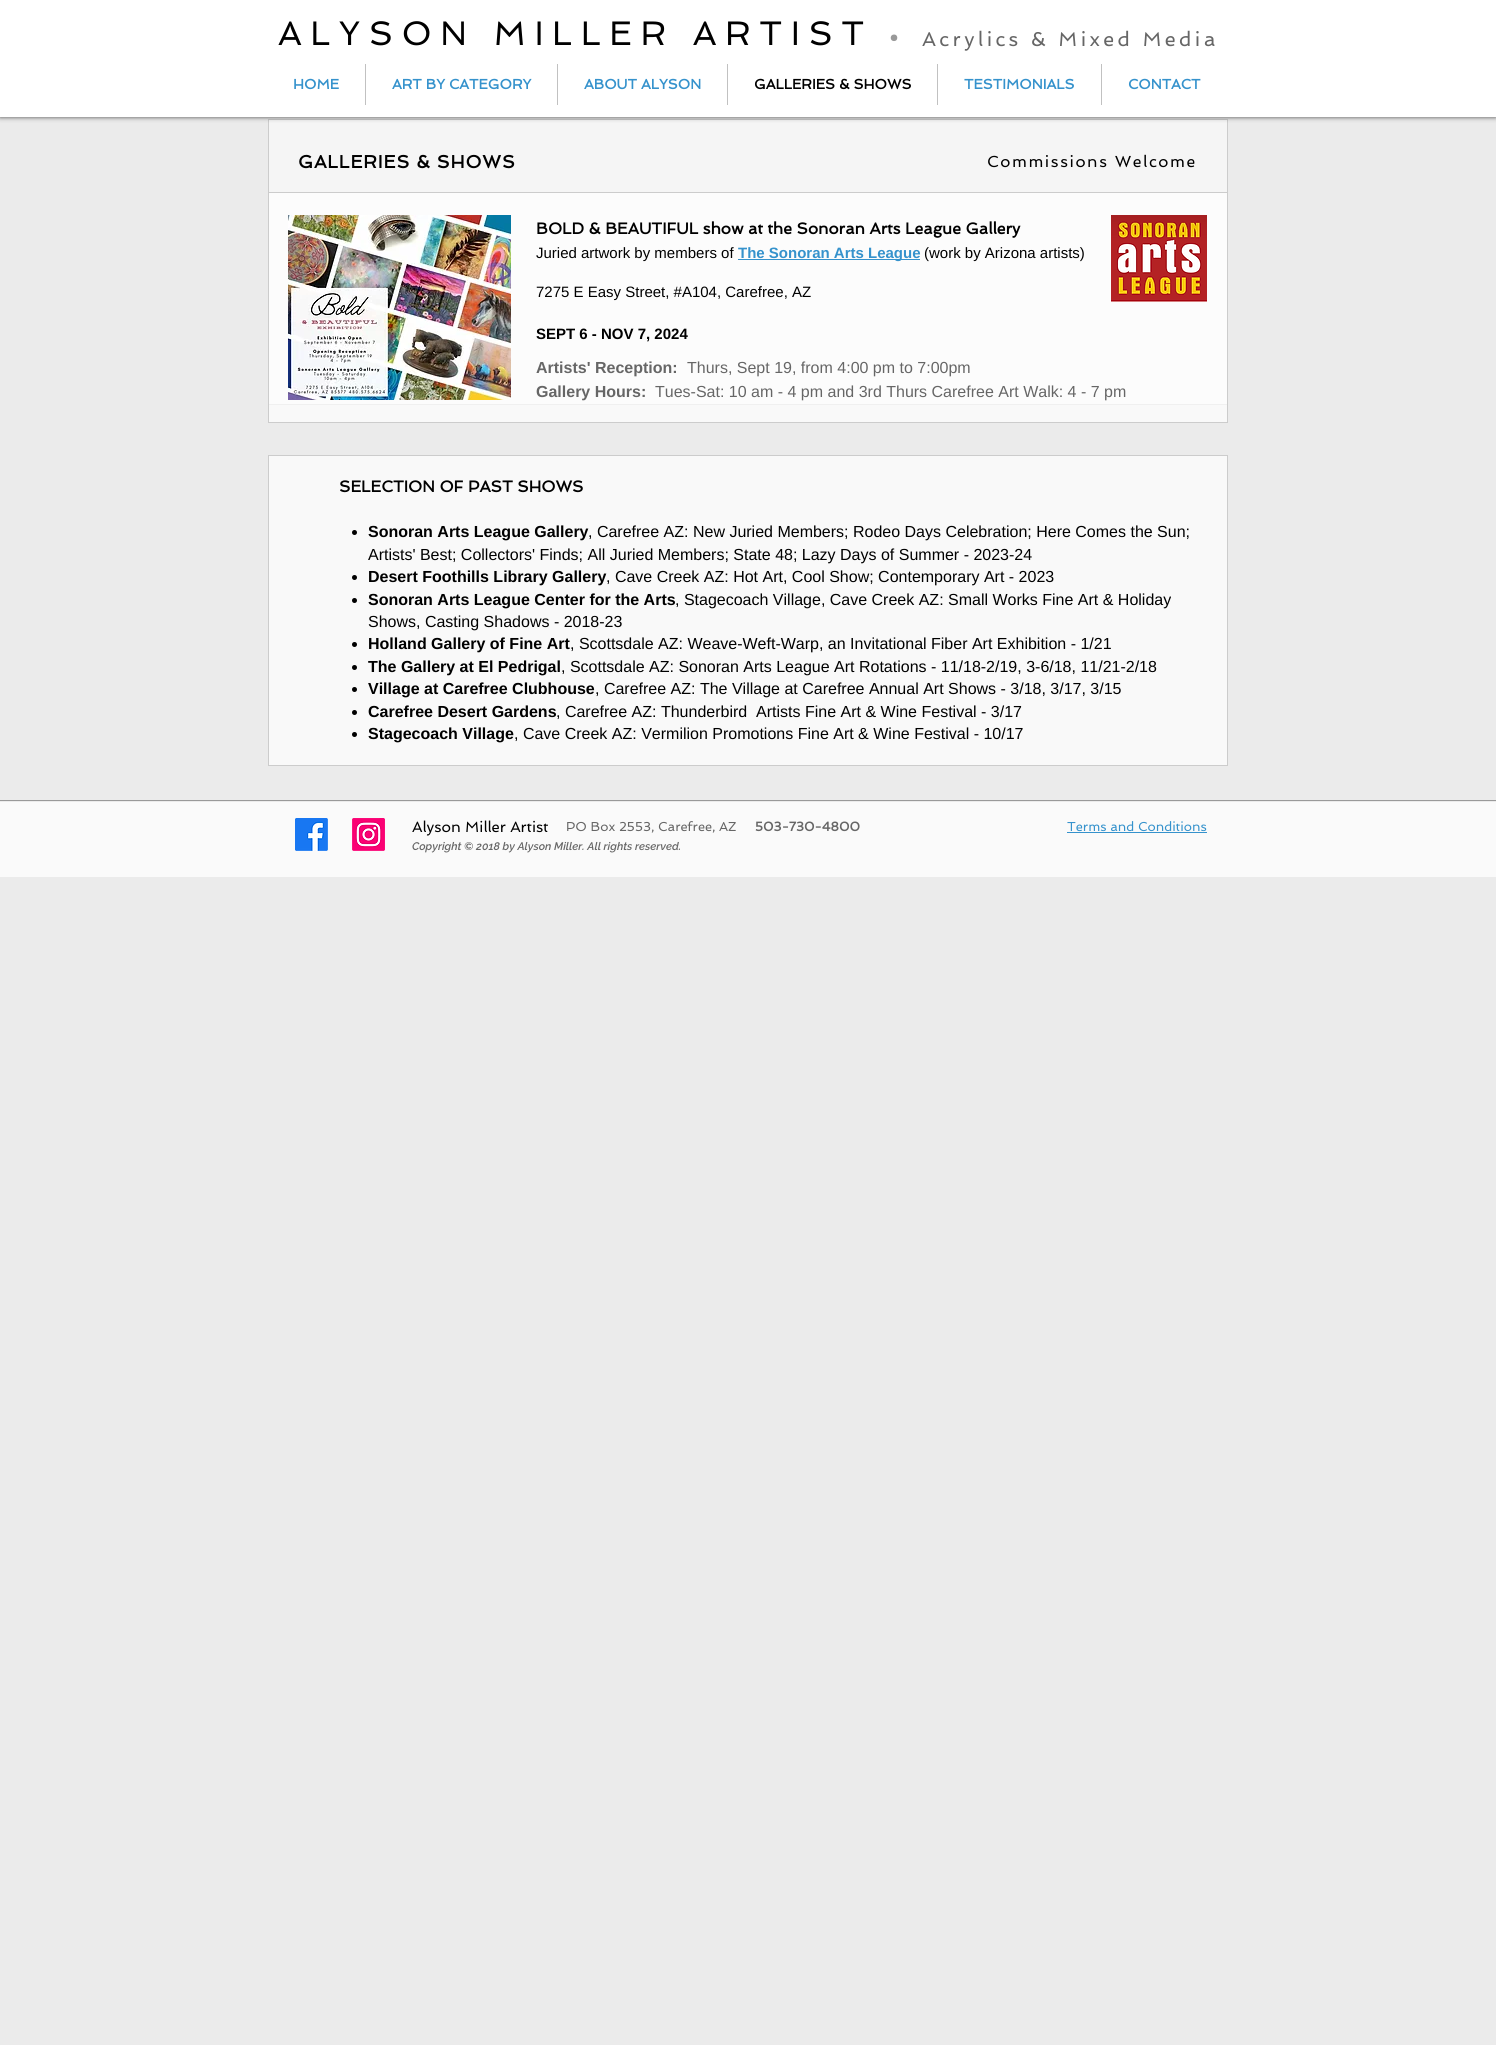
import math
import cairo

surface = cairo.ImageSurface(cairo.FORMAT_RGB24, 1496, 2045)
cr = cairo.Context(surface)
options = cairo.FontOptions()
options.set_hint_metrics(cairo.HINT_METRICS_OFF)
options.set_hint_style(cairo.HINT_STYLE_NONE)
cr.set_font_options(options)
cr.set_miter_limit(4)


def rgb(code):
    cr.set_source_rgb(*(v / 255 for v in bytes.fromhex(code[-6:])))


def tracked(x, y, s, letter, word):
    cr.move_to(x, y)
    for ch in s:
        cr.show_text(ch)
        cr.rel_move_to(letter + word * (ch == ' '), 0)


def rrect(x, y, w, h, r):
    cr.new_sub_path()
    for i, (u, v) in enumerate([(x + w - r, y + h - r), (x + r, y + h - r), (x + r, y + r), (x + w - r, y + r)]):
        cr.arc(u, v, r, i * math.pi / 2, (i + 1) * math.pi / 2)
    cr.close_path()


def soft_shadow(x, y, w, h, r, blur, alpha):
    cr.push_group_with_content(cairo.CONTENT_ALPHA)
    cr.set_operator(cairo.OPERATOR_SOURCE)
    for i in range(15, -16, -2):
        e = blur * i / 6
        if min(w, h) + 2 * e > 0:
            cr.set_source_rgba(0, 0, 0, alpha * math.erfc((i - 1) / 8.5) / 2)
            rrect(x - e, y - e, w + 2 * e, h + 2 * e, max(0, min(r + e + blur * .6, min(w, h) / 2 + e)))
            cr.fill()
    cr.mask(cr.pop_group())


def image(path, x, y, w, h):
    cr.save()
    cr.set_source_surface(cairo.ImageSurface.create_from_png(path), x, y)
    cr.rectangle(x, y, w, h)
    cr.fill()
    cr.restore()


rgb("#ebebeb")
cr.paint()
rgb("#f5f5f5")
cr.rectangle(268.5, 119.5, 959, 285)
cr.fill_preserve()
rgb("#cccccc")
cr.set_line_width(1)
cr.stroke()
rgb("#000000")
soft_shadow(0, 0, 1496, 117, 0, 2.5, 0.7)
for x, y, w, h, color in [
    (0, 0, 1496, 117, "#ffffff"),
    (365, 64, 1, 41, "#c1c1c1"),
    (557, 64, 1, 41, "#c1c1c1"),
    (727, 64, 1, 41, "#c1c1c1"),
    (937, 64, 1, 41, "#c1c1c1"),
    (1101, 64, 1, 41, "#c1c1c1"),
]:
    rgb(color)
    cr.rectangle(x, y, w, h)
    cr.fill()
cr.set_source_rgba(1, 1, 1, 0.7)
cr.rectangle(268.5, 192.5, 959, 230)
cr.fill_preserve()
rgb("#cccccc")
cr.stroke()
image("img/1.png", 288, 215, 223, 185)
rgb("#3592cc")
cr.rectangle(738, 259, 182, 1)
cr.fill()
image("img/2.png", 1111, 215, 96, 87)
rgb("#f9f9f9")
cr.rectangle(268.5, 455.5, 959, 310)
cr.fill_preserve()
rgb("#cccccc")
cr.stroke()
rgb("#000000")
cr.arc(354.5, 532.5, 2.5, 0, 2 * math.pi)
cr.fill()
cr.arc(354.5, 577.5, 2.5, 0, 2 * math.pi)
cr.fill()
cr.arc(354.5, 600.5, 2.5, 0, 2 * math.pi)
cr.fill()
cr.arc(354.5, 644.5, 2.5, 0, 2 * math.pi)
cr.fill()
cr.arc(354.5, 667.5, 2.5, 0, 2 * math.pi)
cr.fill()
cr.arc(354.5, 689.5, 2.5, 0, 2 * math.pi)
cr.fill()
cr.arc(354.5, 712.5, 2.5, 0, 2 * math.pi)
cr.fill()
cr.arc(354.5, 734.5, 2.5, 0, 2 * math.pi)
cr.fill()
for x, y, w, h, color in [
    (0, 800, 1496, 1, "#999999"),
    (0, 802, 1496, 75, "#fafafa"),
    (1067, 832, 140, 1, "#3592cc"),
]:
    rgb(color)
    cr.rectangle(x, y, w, h)
    cr.fill()
image("img/3.png", 295, 818, 33, 33)
image("img/4.png", 352, 818, 33, 33)
cr.select_font_face("Spinnaker")
cr.set_font_size(34)
rgb("#000000")
tracked(278, 45, "ALYSON MILLER ARTIST", 8.5, 0)
cr.set_font_size(33)
rgb("#999999")
tracked(889, 47, "•", 3, 0)
cr.set_font_size(20)
rgb("#666666")
tracked(922, 46, "Acrylics & Mixed Media", 3.4, 0)
cr.select_font_face("Spinnaker", cairo.FONT_SLANT_NORMAL, cairo.FONT_WEIGHT_BOLD)
cr.set_font_size(14)
rgb("#3592cc")
for x, y, s in [
    (293, 89, "HOME"),
    (392, 89, "ART BY CATEGORY"),
    (584, 89, "ABOUT ALYSON"),
]:
    cr.move_to(x, y)
    cr.show_text(s)
rgb("#000000")
cr.move_to(754, 89)
cr.show_text("GALLERIES & SHOWS")
rgb("#3592cc")
cr.move_to(964, 89)
cr.show_text("TESTIMONIALS")
cr.move_to(1128, 89)
cr.show_text("CONTACT")
cr.set_font_size(18)
rgb("#000000")
tracked(298, 168, "GALLERIES & SHOWS", 0.9, 0)
cr.select_font_face("Spinnaker")
cr.set_font_size(16)
tracked(987, 167, "Commissions Welcome", 1.6, 0)
cr.select_font_face("Spinnaker", cairo.FONT_SLANT_NORMAL, cairo.FONT_WEIGHT_BOLD)
cr.move_to(536, 234)
cr.show_text("BOLD & BEAUTIFUL show at the Sonoran Arts League Gallery")
cr.select_font_face("Liberation Sans")
cr.set_font_size(15)
cr.move_to(536, 258)
cr.show_text("Juried artwork by members of")
cr.select_font_face("Liberation Sans", cairo.FONT_SLANT_NORMAL, cairo.FONT_WEIGHT_BOLD)
rgb("#3592cc")
cr.move_to(738, 258)
cr.show_text("The Sonoran Arts League")
cr.select_font_face("Liberation Sans")
rgb("#000000")
cr.move_to(924, 258)
cr.show_text("(work by Arizona artists)")
cr.move_to(536, 297)
cr.show_text("7275 E Easy Street, #A104, Carefree, AZ")
cr.select_font_face("Liberation Sans", cairo.FONT_SLANT_NORMAL, cairo.FONT_WEIGHT_BOLD)
cr.move_to(536, 339)
cr.show_text("SEPT 6 - NOV 7, 2024")
cr.set_font_size(16)
rgb("#666666")
cr.move_to(536, 373)
cr.show_text("Artists' Reception:")
cr.select_font_face("Liberation Sans")
cr.move_to(687, 373)
cr.show_text("Thurs, Sept 19, from 4:00 pm to 7:00pm")
cr.select_font_face("Liberation Sans", cairo.FONT_SLANT_NORMAL, cairo.FONT_WEIGHT_BOLD)
cr.move_to(536, 397)
cr.show_text("Gallery Hours:")
cr.select_font_face("Liberation Sans")
cr.move_to(655, 397)
cr.show_text("Tues-Sat: 10 am - 4 pm and 3rd Thurs Carefree Art Walk: 4 - 7 pm")
cr.select_font_face("Spinnaker", cairo.FONT_SLANT_NORMAL, cairo.FONT_WEIGHT_BOLD)
rgb("#000000")
cr.move_to(339, 492)
cr.show_text("SELECTION OF PAST SHOWS")
cr.select_font_face("Liberation Sans", cairo.FONT_SLANT_NORMAL, cairo.FONT_WEIGHT_BOLD)
cr.move_to(368, 537)
cr.show_text("Sonoran Arts League Gallery")
cr.select_font_face("Liberation Sans")
cr.move_to(588, 537)
cr.show_text(", Carefree AZ: New Juried Members; Rodeo Days Celebration; Here Comes the Sun;")
cr.move_to(368, 560)
cr.show_text("Artists' Best; Collectors' Finds; All Juried Members; State 48; Lazy Days of Summer - 2023-24")
cr.select_font_face("Liberation Sans", cairo.FONT_SLANT_NORMAL, cairo.FONT_WEIGHT_BOLD)
cr.move_to(368, 582)
cr.show_text("Desert Foothills Library Gallery")
cr.select_font_face("Liberation Sans")
cr.move_to(606, 582)
cr.show_text(", Cave Creek AZ: Hot Art, Cool Show; Contemporary Art - 2023")
cr.select_font_face("Liberation Sans", cairo.FONT_SLANT_NORMAL, cairo.FONT_WEIGHT_BOLD)
cr.move_to(368, 605)
cr.show_text("Sonoran Arts League Center for the Arts")
cr.select_font_face("Liberation Sans")
cr.move_to(675, 605)
cr.show_text(", Stagecoach Village, Cave Creek AZ: Small Works Fine Art & Holiday")
cr.move_to(368, 627)
cr.show_text("Shows, Casting Shadows - 2018-23")
cr.select_font_face("Liberation Sans", cairo.FONT_SLANT_NORMAL, cairo.FONT_WEIGHT_BOLD)
cr.move_to(368, 649)
cr.show_text("Holland Gallery of Fine Art")
cr.select_font_face("Liberation Sans")
cr.move_to(570, 649)
cr.show_text(", Scottsdale AZ: Weave-Weft-Warp, an Invitational Fiber Art Exhibition - 1/21")
cr.select_font_face("Liberation Sans", cairo.FONT_SLANT_NORMAL, cairo.FONT_WEIGHT_BOLD)
cr.move_to(368, 672)
cr.show_text("The Gallery at El Pedrigal")
cr.select_font_face("Liberation Sans")
cr.move_to(561, 672)
cr.show_text(", Scottsdale AZ: Sonoran Arts League Art Rotations - 11/18-2/19, 3-6/18, 11/21-2/18")
cr.select_font_face("Liberation Sans", cairo.FONT_SLANT_NORMAL, cairo.FONT_WEIGHT_BOLD)
cr.move_to(368, 694)
cr.show_text("Village at Carefree Clubhouse")
cr.select_font_face("Liberation Sans")
cr.move_to(595, 694)
cr.show_text(", Carefree AZ: The Village at Carefree Annual Art Shows - 3/18, 3/17, 3/15")
cr.select_font_face("Liberation Sans", cairo.FONT_SLANT_NORMAL, cairo.FONT_WEIGHT_BOLD)
cr.move_to(368, 717)
cr.show_text("Carefree Desert Gardens")
cr.select_font_face("Liberation Sans")
cr.move_to(556, 717)
cr.show_text(", Carefree AZ: Thunderbird  Artists Fine Art & Wine Festival - 3/17")
cr.select_font_face("Liberation Sans", cairo.FONT_SLANT_NORMAL, cairo.FONT_WEIGHT_BOLD)
cr.move_to(368, 739)
cr.show_text("Stagecoach Village")
cr.select_font_face("Liberation Sans")
cr.move_to(514, 739)
cr.show_text(", Cave Creek AZ: Vermilion Promotions Fine Art & Wine Festival - 10/17")
cr.select_font_face("Spinnaker")
cr.set_font_size(15)
cr.move_to(412, 832)
cr.show_text("Alyson Miller Artist")
cr.set_font_size(13)
rgb("#666666")
cr.move_to(566, 831)
cr.show_text("PO Box 2553, Carefree, AZ")
cr.select_font_face("Spinnaker", cairo.FONT_SLANT_NORMAL, cairo.FONT_WEIGHT_BOLD)
cr.move_to(755, 831)
cr.show_text("503-730-4800")
cr.select_font_face("Spinnaker")
rgb("#3592cc")
cr.move_to(1067, 831)
cr.show_text("Terms and Conditions")
cr.select_font_face("Raleway SemiBold", cairo.FONT_SLANT_ITALIC)
cr.set_font_size(11)
rgb("#666666")
cr.move_to(412, 850)
cr.show_text("Copyright © 2018 by Alyson Miller. All rights reserved.")
surface.write_to_png("page.png")
